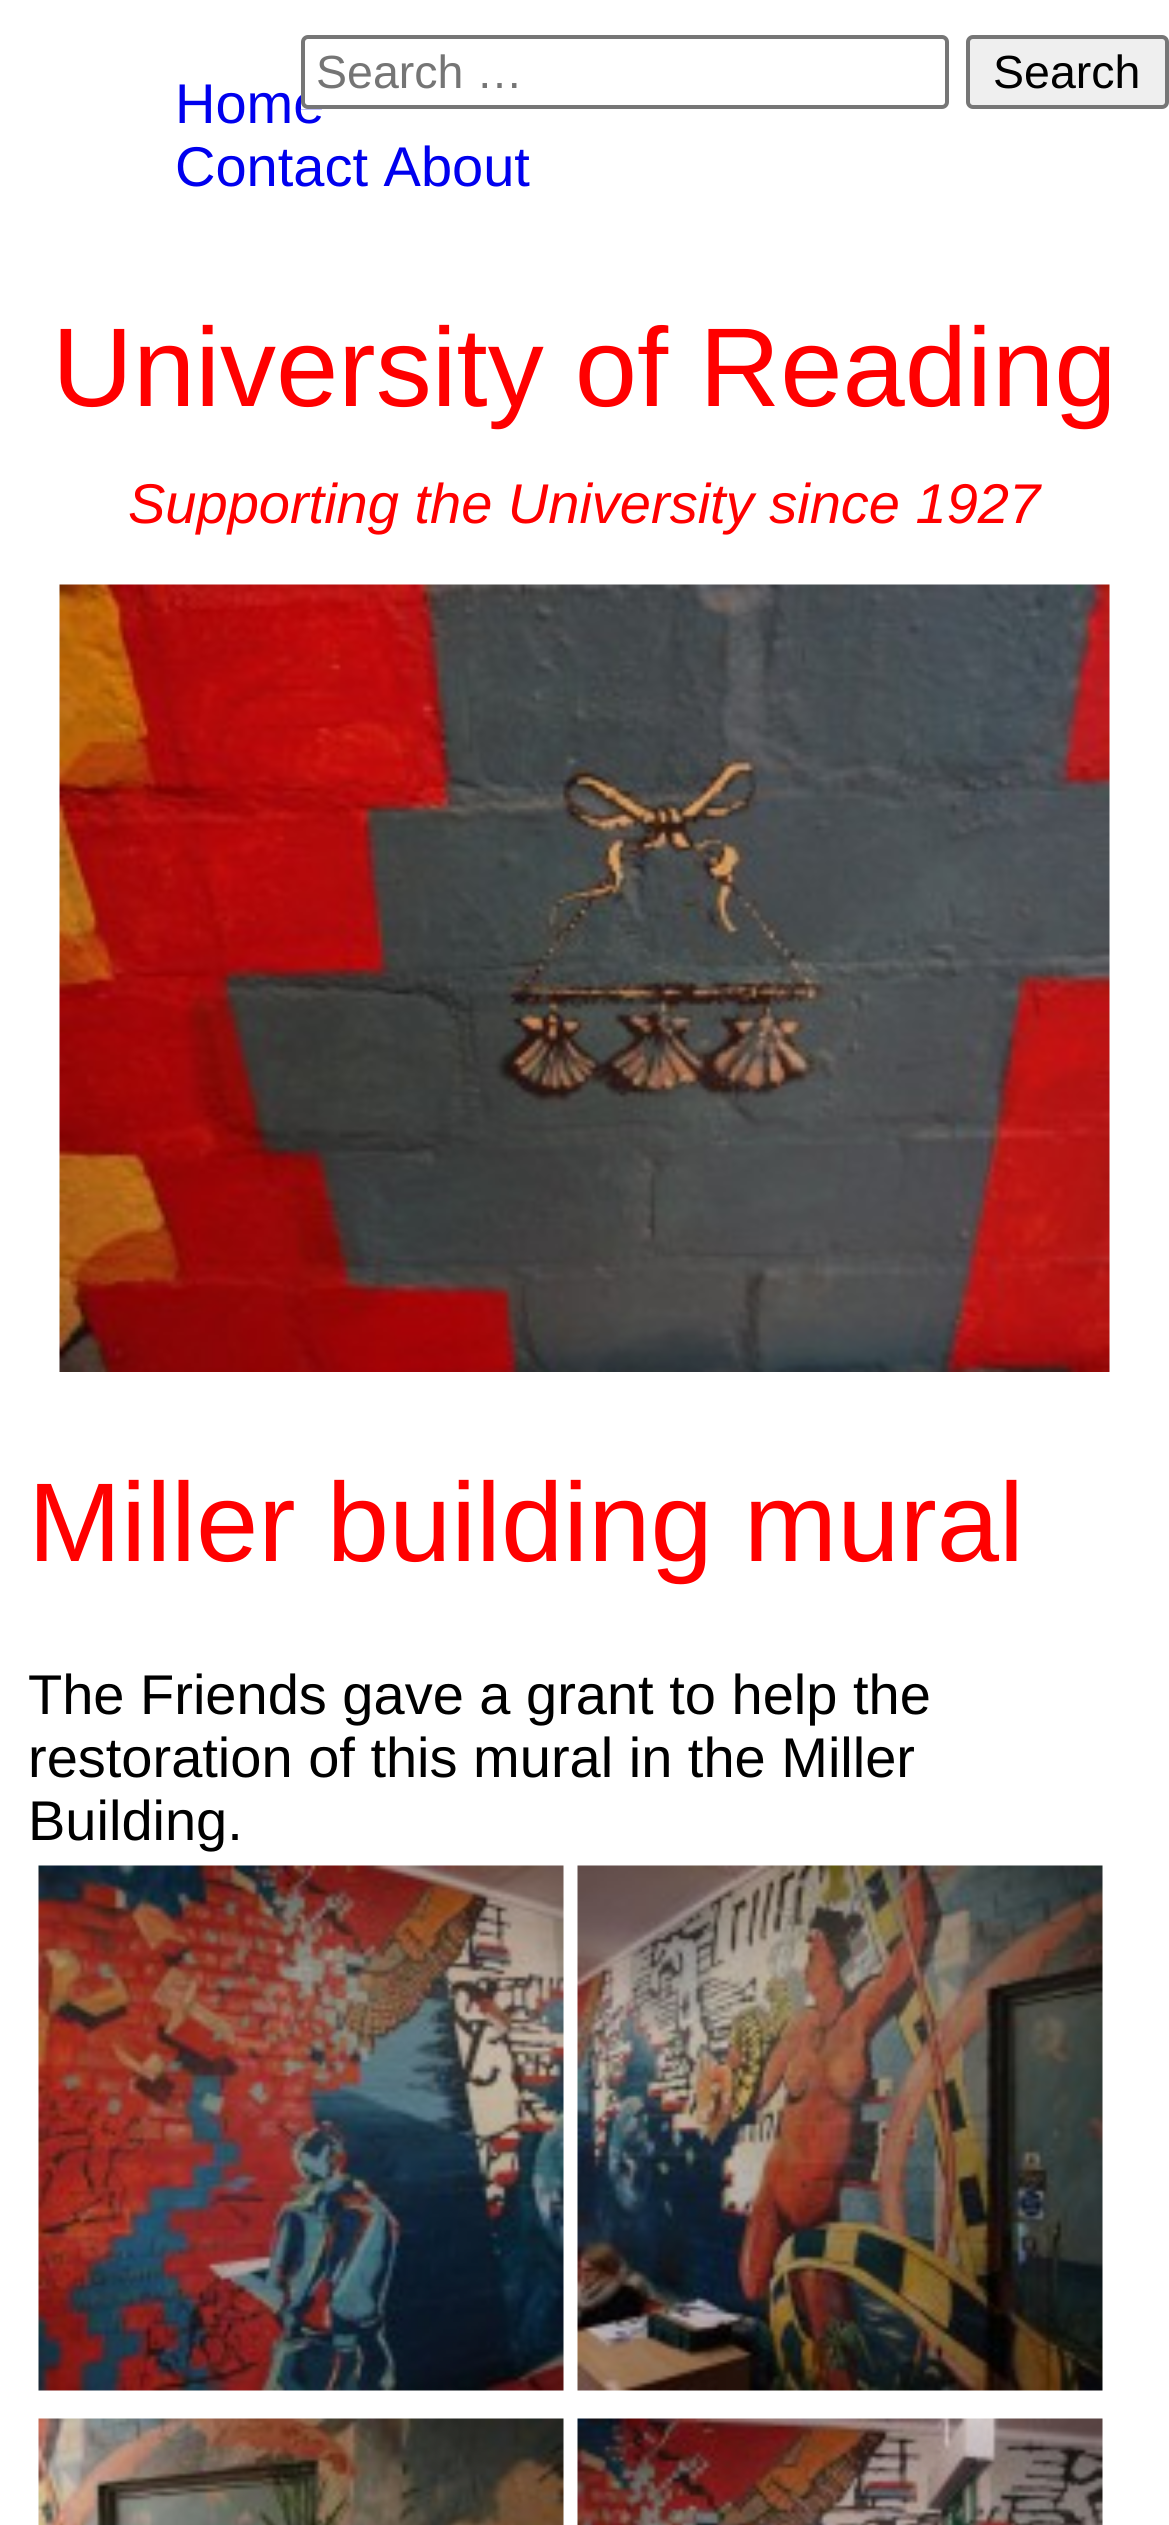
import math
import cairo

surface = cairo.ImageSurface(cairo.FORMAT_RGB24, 1169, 2525)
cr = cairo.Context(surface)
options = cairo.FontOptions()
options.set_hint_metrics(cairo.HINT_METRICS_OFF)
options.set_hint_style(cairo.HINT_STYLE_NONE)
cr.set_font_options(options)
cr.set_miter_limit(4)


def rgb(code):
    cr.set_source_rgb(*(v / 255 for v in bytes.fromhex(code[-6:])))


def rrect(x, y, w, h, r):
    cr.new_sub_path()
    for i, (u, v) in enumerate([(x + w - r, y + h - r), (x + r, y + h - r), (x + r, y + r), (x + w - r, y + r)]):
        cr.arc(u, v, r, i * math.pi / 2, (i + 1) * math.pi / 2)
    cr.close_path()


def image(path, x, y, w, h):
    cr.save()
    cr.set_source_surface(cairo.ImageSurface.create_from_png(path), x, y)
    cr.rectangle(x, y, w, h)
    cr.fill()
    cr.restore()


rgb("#ffffff")
cr.paint()
rgb("#efefef")
rrect(968, 37, 199, 70, 5)
cr.fill_preserve()
rgb("#767676")
cr.set_line_width(4)
cr.stroke()
image("img/1.png", 59, 584, 1051, 788)
image("img/2.png", 38, 1865, 526, 526)
image("img/3.png", 577, 1865, 526, 526)
image("img/4.png", 38, 2418, 526, 107)
image("img/5.png", 577, 2418, 526, 107)
cr.select_font_face("Liberation Sans")
cr.set_font_size(46.5)
rgb("#000000")
cr.move_to(993, 88)
cr.show_text("Search")
cr.set_font_size(56)
rgb("#0000ee")
cr.move_to(175, 123)
cr.show_text("Home")
rgb("#ffffff")
cr.rectangle(301, 92, 21, 17)
cr.fill()
rrect(303, 37, 644, 70, 5)
rgb("#767676")
cr.stroke()
cr.set_font_size(46.5)
rgb("#757575")
cr.move_to(316, 88)
cr.show_text("Search …")
cr.set_font_size(56)
rgb("#0000ee")
cr.move_to(175, 186)
cr.show_text("Contact About")
cr.set_font_size(112)
rgb("#ff0000")
cr.move_to(52, 406)
cr.show_text("University of Reading")
cr.select_font_face("Liberation Sans", cairo.FONT_SLANT_ITALIC)
cr.set_font_size(56)
cr.move_to(128, 523)
cr.show_text("Supporting the University since 1927")
cr.select_font_face("Liberation Sans")
cr.set_font_size(112)
cr.move_to(28, 1561)
cr.show_text("Miller building mural")
cr.set_font_size(56)
rgb("#000000")
for x, y, s in [
    (28, 1714, "The Friends gave a grant to help the"),
    (28, 1777, "restoration of this mural in the Miller"),
    (28, 1840, "Building."),
]:
    cr.move_to(x, y)
    cr.show_text(s)
surface.write_to_png("page.png")
